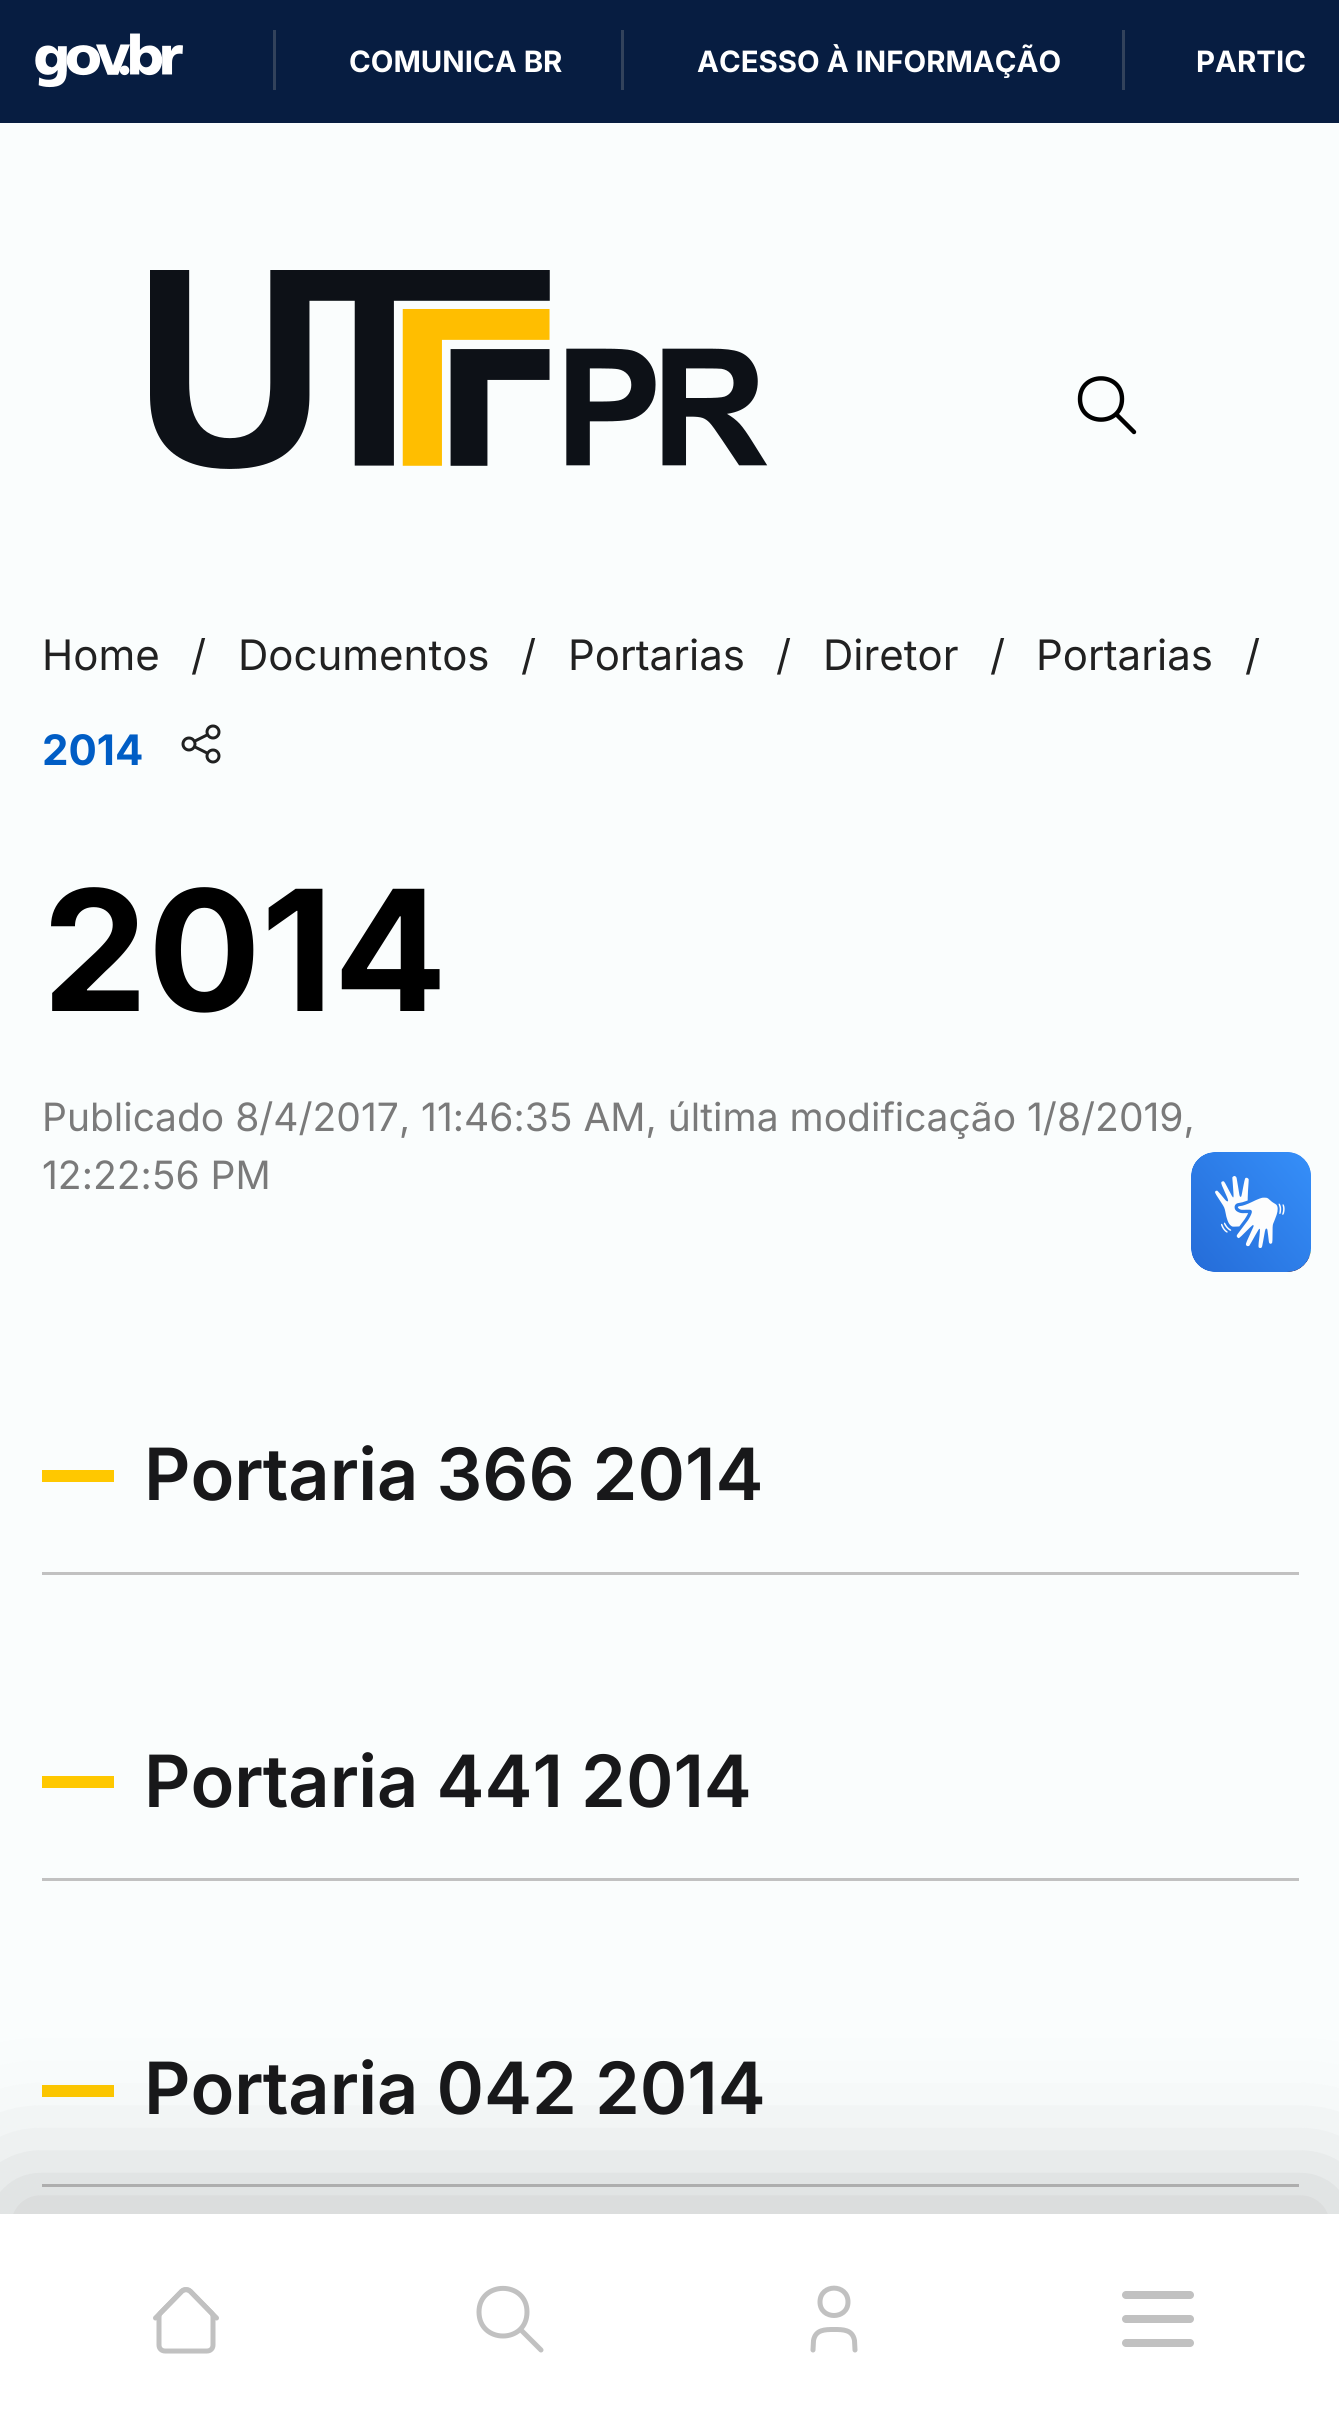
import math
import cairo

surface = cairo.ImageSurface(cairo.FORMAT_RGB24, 1339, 2422)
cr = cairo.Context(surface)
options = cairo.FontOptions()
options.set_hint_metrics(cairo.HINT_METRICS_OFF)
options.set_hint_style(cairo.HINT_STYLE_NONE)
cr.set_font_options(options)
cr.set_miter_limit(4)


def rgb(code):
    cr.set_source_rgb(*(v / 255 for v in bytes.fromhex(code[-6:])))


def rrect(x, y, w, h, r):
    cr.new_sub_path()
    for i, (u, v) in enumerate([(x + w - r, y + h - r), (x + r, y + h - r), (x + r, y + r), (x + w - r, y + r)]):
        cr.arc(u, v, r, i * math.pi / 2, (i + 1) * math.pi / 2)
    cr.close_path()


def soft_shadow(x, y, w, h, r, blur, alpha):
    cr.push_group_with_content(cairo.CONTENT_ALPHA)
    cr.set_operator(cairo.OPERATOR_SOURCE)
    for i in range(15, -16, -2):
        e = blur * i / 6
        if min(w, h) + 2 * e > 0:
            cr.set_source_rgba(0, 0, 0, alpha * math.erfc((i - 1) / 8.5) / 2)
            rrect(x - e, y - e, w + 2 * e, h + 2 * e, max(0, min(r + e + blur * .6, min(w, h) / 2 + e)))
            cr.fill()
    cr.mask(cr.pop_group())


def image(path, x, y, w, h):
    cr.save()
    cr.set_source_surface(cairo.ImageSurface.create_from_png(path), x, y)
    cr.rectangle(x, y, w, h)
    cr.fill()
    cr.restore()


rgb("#fafdfd")
cr.paint()
rgb("#071d41")
cr.rectangle(0, 0, 1339, 123)
cr.fill()
image("img/1.png", 35, 33, 148, 55)
for x, y, w, h, color in [
    (273, 30, 3, 60, "#32425b"),
    (621, 30, 3, 60, "#32425b"),
    (1122, 30, 3, 60, "#32425b"),
]:
    rgb(color)
    cr.rectangle(x, y, w, h)
    cr.fill()
image("img/2.png", 150, 270, 618, 199)
cr.new_path()
cr.move_to(1134, 432)
cr.line_to(1116, 414)
cr.move_to(1080, 399)
cr.curve_to(1080, 426.5, 1122, 426.5, 1122, 399)
cr.curve_to(1122, 371.5, 1080, 371.5, 1080, 399)
cr.close_path()
rgb("#000000")
cr.set_line_width(4.4)
cr.set_line_cap(cairo.LINE_CAP_ROUND)
cr.set_line_join(cairo.LINE_JOIN_ROUND)
cr.stroke()
rgb("#ffc800")
cr.rectangle(42, 2085, 72, 12)
cr.fill()
rgb("#c1c1c1")
cr.rectangle(42, 2184, 1257, 3)
cr.fill()
rgb("#000000")
soft_shadow(0, 2184, 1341, 210, 0, 67.5, 0.2)
rgb("#ffffff")
cr.rectangle(0, 2214, 1339, 208)
cr.fill()
cr.new_path()
cr.move_to(160.5, 2313)
cr.line_to(181.5, 2291.5)
cr.curve_to(184, 2289, 188, 2289, 190.5, 2291.5)
cr.line_to(211.5, 2313)
cr.curve_to(212.5, 2314, 213, 2315.5, 213, 2317.5)
cr.line_to(213, 2345)
cr.curve_to(213, 2348.5, 210.5, 2351, 207, 2351)
cr.line_to(165, 2351)
cr.curve_to(161.5, 2351, 159, 2348.5, 159, 2345)
cr.line_to(159, 2317.5)
cr.curve_to(159, 2315.5, 159.5, 2314, 160.5, 2313)
cr.close_path()
rgb("#c1c1c1")
cr.set_line_width(5)
cr.set_line_cap(cairo.LINE_CAP_BUTT)
cr.set_line_join(cairo.LINE_JOIN_MITER)
cr.stroke()
cr.new_path()
cr.move_to(155.5, 2318)
cr.line_to(181.5, 2291.5)
cr.curve_to(184, 2289, 188, 2289, 190.5, 2291.5)
cr.line_to(216.5, 2318)
cr.set_line_cap(cairo.LINE_CAP_ROUND)
cr.stroke()
cr.new_path()
cr.move_to(541, 2350)
cr.line_to(520.5, 2329.5)
cr.move_to(479, 2312)
cr.curve_to(479, 2344, 527, 2344, 527, 2312)
cr.curve_to(527, 2280.5, 479, 2280.5, 479, 2312)
cr.close_path()
cr.set_line_join(cairo.LINE_JOIN_ROUND)
cr.stroke()
cr.new_path()
cr.move_to(813, 2350)
cr.line_to(813.5, 2340.5)
cr.curve_to(815.5, 2329.5, 825, 2329.5, 834, 2329.5)
cr.curve_to(843, 2329.5, 852.5, 2329.5, 854.5, 2340.5)
cr.line_to(855, 2350)
cr.move_to(820, 2302)
cr.curve_to(820, 2320, 848, 2320, 848, 2302)
cr.curve_to(848, 2283.5, 820, 2283.5, 820, 2302)
cr.close_path()
cr.stroke()
cr.new_path()
cr.move_to(1126, 2343)
cr.line_to(1190, 2343)
cr.set_line_width(8)
cr.set_line_join(cairo.LINE_JOIN_MITER)
cr.stroke()
cr.new_path()
cr.move_to(1126, 2319)
cr.line_to(1190, 2319)
cr.stroke()
cr.new_path()
cr.move_to(1126, 2295)
cr.line_to(1190, 2295)
cr.stroke()
image("img/3.png", 181, 724, 40, 40)
for x, y, w, h, color in [
    (42, 1470, 72, 12, "#ffc800"),
    (42, 1572, 1257, 3, "#c1c1c1"),
    (42, 1776, 72, 12, "#ffc800"),
    (42, 1878, 1257, 3, "#c1c1c1"),
]:
    rgb(color)
    cr.rectangle(x, y, w, h)
    cr.fill()
image("img/4.png", 1191, 1152, 120, 120)
image("img/5.png", 1191, 1152, 120, 120)
cr.select_font_face("Inter", cairo.FONT_SLANT_NORMAL, cairo.FONT_WEIGHT_BOLD)
cr.set_font_size(29.4)
rgb("#ffffff")
for x, y, s in [
    (349, 72, "COMUNICA BR"),
    (697, 72, "ACESSO À INFORMAÇÃO"),
    (1196, 72, "PARTIC"),
]:
    cr.move_to(x, y)
    cr.show_text(s)
cr.select_font_face("Inter")
cr.set_font_size(42)
rgb("#212121")
for x, y, s in [
    (42, 670, "Home"),
    (191, 670, "/"),
    (238, 670, "Documentos"),
    (521, 670, "/"),
    (568, 670, "Portarias"),
    (776, 670, "/"),
    (823, 670, "Diretor"),
    (990, 670, "/"),
    (1036, 670, "Portarias"),
    (1245, 670, "/"),
]:
    cr.move_to(x, y)
    cr.show_text(s)
cr.select_font_face("Inter", cairo.FONT_SLANT_NORMAL, cairo.FONT_WEIGHT_BOLD)
rgb("#005dc5")
cr.move_to(42, 765)
cr.show_text("2014")
cr.set_font_size(168)
rgb("#000000")
cr.move_to(42, 1011)
cr.show_text("2014")
cr.select_font_face("Inter")
cr.set_font_size(39)
rgb("#7a7a7a")
cr.move_to(42, 1131)
cr.show_text("Publicado 8/4/2017, 11:46:35 AM, última modificação 1/8/2019,")
cr.move_to(42, 1189)
cr.show_text("12:22:56 PM")
cr.select_font_face("Inter SemiBold")
cr.set_font_size(72)
rgb("#18181a")
for x, y, s in [
    (144, 1500, "Portaria 366 2014"),
    (144, 1807, "Portaria 441 2014"),
    (144, 2114, "Portaria 042 2014"),
]:
    cr.move_to(x, y)
    cr.show_text(s)
surface.write_to_png("page.png")
